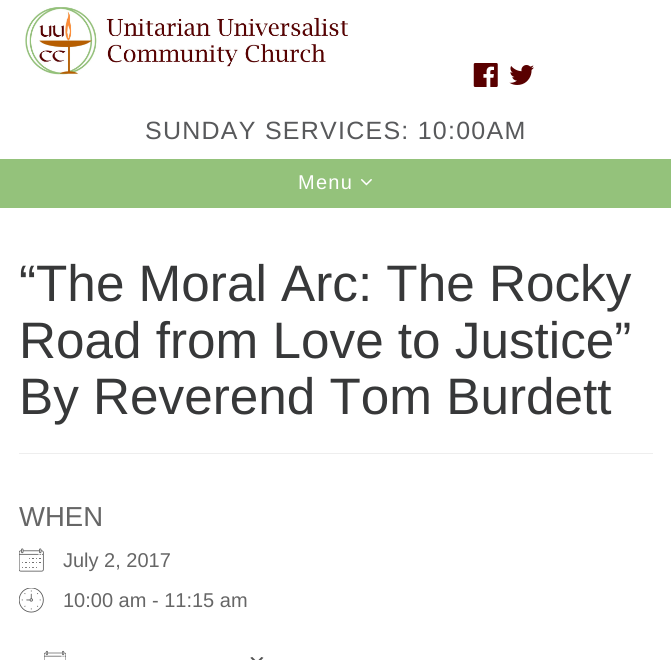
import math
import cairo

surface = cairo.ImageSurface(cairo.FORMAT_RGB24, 671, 660)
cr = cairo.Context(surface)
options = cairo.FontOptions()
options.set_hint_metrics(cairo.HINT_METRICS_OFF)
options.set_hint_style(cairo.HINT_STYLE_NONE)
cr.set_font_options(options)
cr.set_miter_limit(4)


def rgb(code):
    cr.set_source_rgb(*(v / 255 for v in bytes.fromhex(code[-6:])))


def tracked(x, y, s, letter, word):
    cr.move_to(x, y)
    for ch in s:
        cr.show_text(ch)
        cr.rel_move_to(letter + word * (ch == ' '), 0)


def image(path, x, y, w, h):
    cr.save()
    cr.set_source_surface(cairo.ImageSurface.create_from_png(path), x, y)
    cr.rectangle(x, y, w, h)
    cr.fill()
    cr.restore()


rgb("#ffffff")
cr.paint()
image("img/1.png", 25, 7, 324, 68)
image("img/2.png", 473, 63, 25, 24)
image("img/3.png", 509, 65, 25, 20)
rgb("#94c27b")
cr.rectangle(0, 159, 671, 49)
cr.fill()
image("img/4.png", 360, 179, 12, 7)
rgb("#eeeeee")
cr.rectangle(19, 453, 634, 1)
cr.fill()
image("img/5.png", 19, 548, 25, 24)
image("img/6.png", 19, 588, 25, 25)
image("img/7.png", 250, 657, 14, 3)
image("img/8.png", 44, 650, 22, 10)
cr.select_font_face("Liberation Sans")
cr.set_font_size(25)
rgb("#58595b")
tracked(145, 139, "SUNDAY SERVICES: 10:00AM", 1.25, 0)
cr.set_font_size(20)
rgb("#ffffff")
tracked(298, 189, "Menu", 1.25, 0)
cr.set_font_size(51.25)
rgb("#373839")
for x, y, s in [
    (19, 301, "“The Moral Arc: The Rocky"),
    (19, 358, "Road from Love to Justice”"),
    (19, 414, "By Reverend Tom Burdett"),
]:
    cr.move_to(x, y)
    cr.show_text(s)
cr.set_font_size(27.5)
rgb("#666666")
cr.move_to(19, 526)
cr.show_text("WHEN")
cr.set_font_size(20)
cr.move_to(63, 567)
cr.show_text("July 2, 2017")
cr.move_to(63, 607)
cr.show_text("10:00 am - 11:15 am")
surface.write_to_png("page.png")
